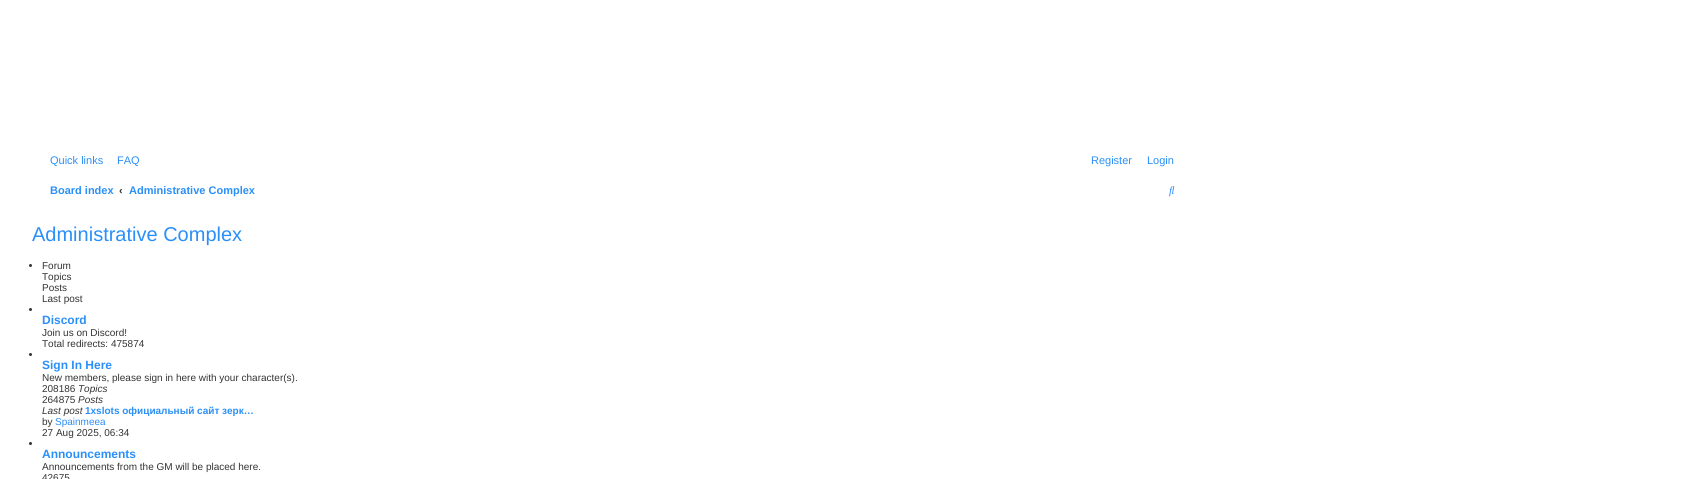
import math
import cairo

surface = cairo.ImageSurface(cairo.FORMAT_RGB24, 1681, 479)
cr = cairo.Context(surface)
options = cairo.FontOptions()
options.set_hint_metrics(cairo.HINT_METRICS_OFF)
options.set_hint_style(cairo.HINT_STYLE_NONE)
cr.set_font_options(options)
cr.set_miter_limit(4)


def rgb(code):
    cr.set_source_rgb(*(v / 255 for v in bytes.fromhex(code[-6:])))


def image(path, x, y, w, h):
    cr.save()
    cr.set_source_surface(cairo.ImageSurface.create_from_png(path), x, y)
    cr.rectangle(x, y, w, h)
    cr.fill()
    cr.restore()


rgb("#ffffff")
cr.paint()
image("img/1.png", 1169, 186, 6, 11)
rgb("#333333")
cr.arc(30.5, 265.5, 1.5, 0, 2 * math.pi)
cr.fill()
cr.arc(30.5, 309.5, 1.5, 0, 2 * math.pi)
cr.fill()
cr.arc(30.5, 354.5, 1.5, 0, 2 * math.pi)
cr.fill()
cr.arc(30.5, 443.5, 1.5, 0, 2 * math.pi)
cr.fill()
cr.select_font_face("Liberation Sans")
cr.set_font_size(11)
rgb("#2a8ff7")
for x, y, s in [
    (50, 164, "Quick links"),
    (117, 164, "FAQ"),
    (1091, 164, "Register"),
    (1147, 164, "Login"),
]:
    cr.move_to(x, y)
    cr.show_text(s)
cr.select_font_face("Liberation Sans", cairo.FONT_SLANT_NORMAL, cairo.FONT_WEIGHT_BOLD)
cr.move_to(50, 194)
cr.show_text("Board index")
rgb("#333333")
cr.move_to(119, 194)
cr.show_text("‹")
rgb("#2a8ff7")
cr.move_to(129, 194)
cr.show_text("Administrative Complex")
cr.select_font_face("Liberation Sans")
cr.set_font_size(20)
cr.move_to(32, 241)
cr.show_text("Administrative Complex")
cr.set_font_size(10)
rgb("#333333")
for x, y, s in [
    (42, 269, "Forum"),
    (42, 280, "Topics"),
    (42, 291, "Posts"),
    (42, 302, "Last post"),
]:
    cr.move_to(x, y)
    cr.show_text(s)
cr.select_font_face("Liberation Sans", cairo.FONT_SLANT_NORMAL, cairo.FONT_WEIGHT_BOLD)
cr.set_font_size(12)
rgb("#2a8ff7")
cr.move_to(42, 324)
cr.show_text("Discord")
cr.select_font_face("Liberation Sans")
cr.set_font_size(10)
rgb("#333333")
cr.move_to(42, 336)
cr.show_text("Join us on Discord!")
cr.move_to(42, 347)
cr.show_text("Total redirects: 475874")
cr.select_font_face("Liberation Sans", cairo.FONT_SLANT_NORMAL, cairo.FONT_WEIGHT_BOLD)
cr.set_font_size(12)
rgb("#2a8ff7")
cr.move_to(42, 369)
cr.show_text("Sign In Here")
cr.select_font_face("Liberation Sans")
cr.set_font_size(10)
rgb("#333333")
cr.move_to(42, 381)
cr.show_text("New members, please sign in here with your character(s).")
cr.move_to(42, 392)
cr.show_text("208186")
cr.select_font_face("Liberation Sans", cairo.FONT_SLANT_ITALIC)
cr.move_to(78, 392)
cr.show_text("Topics")
cr.select_font_face("Liberation Sans")
cr.move_to(42, 403)
cr.show_text("264875")
cr.select_font_face("Liberation Sans", cairo.FONT_SLANT_ITALIC)
cr.move_to(78, 403)
cr.show_text("Posts")
cr.move_to(42, 414)
cr.show_text("Last post")
cr.select_font_face("Liberation Sans", cairo.FONT_SLANT_NORMAL, cairo.FONT_WEIGHT_BOLD)
rgb("#2a8ff7")
cr.move_to(85, 414)
cr.show_text("1xslots официальный сайт зерк…")
cr.select_font_face("Liberation Sans")
rgb("#333333")
cr.move_to(42, 425)
cr.show_text("by")
rgb("#2a8ff7")
cr.move_to(55, 425)
cr.show_text("Spainmeea")
rgb("#333333")
cr.move_to(42, 436)
cr.show_text("27 Aug 2025, 06:34")
cr.select_font_face("Liberation Sans", cairo.FONT_SLANT_NORMAL, cairo.FONT_WEIGHT_BOLD)
cr.set_font_size(12)
rgb("#2a8ff7")
cr.move_to(42, 458)
cr.show_text("Announcements")
cr.select_font_face("Liberation Sans")
cr.set_font_size(10)
rgb("#333333")
cr.move_to(42, 470)
cr.show_text("Announcements from the GM will be placed here.")
cr.move_to(42, 481)
cr.show_text("42675")
surface.write_to_png("page.png")
